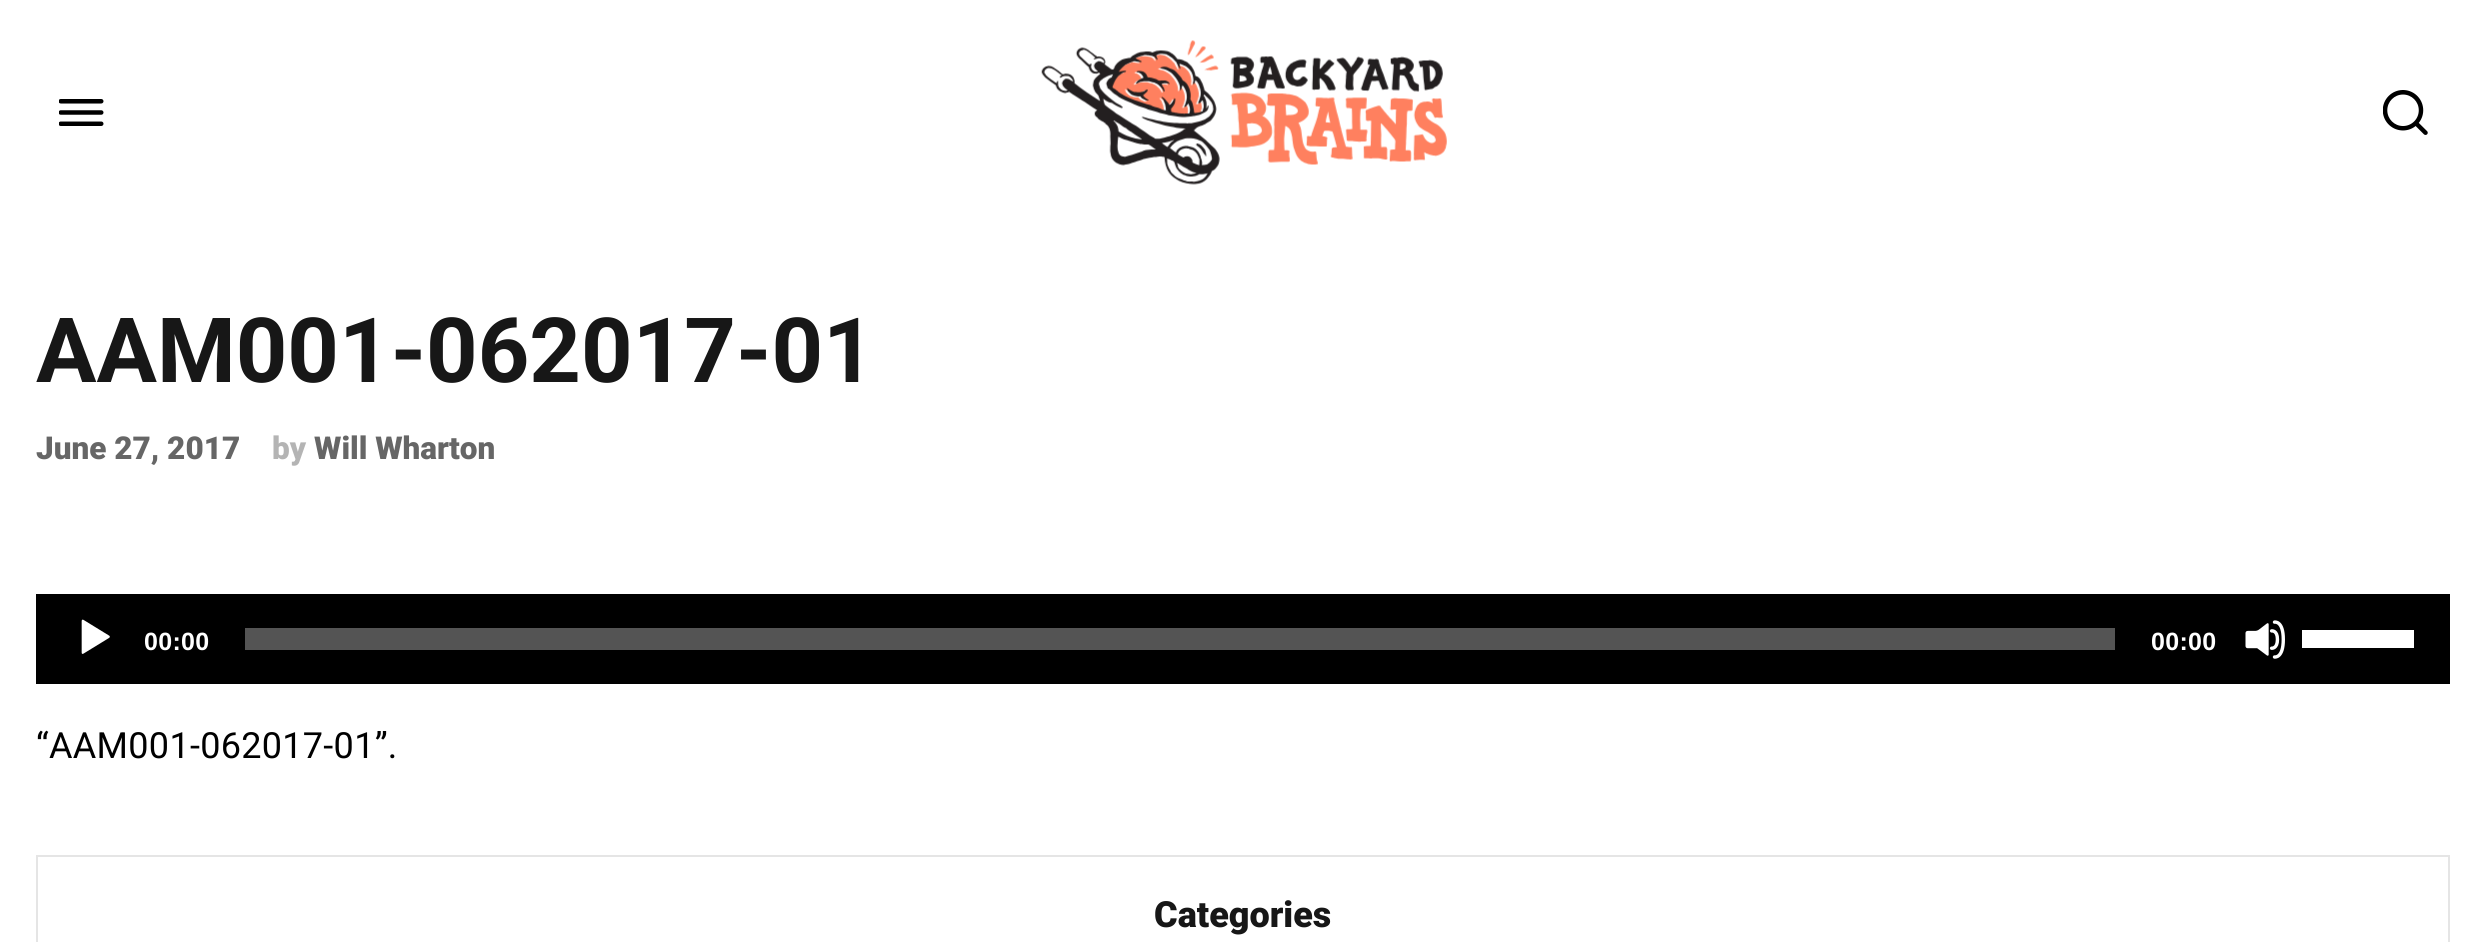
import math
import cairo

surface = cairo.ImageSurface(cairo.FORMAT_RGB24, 2486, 942)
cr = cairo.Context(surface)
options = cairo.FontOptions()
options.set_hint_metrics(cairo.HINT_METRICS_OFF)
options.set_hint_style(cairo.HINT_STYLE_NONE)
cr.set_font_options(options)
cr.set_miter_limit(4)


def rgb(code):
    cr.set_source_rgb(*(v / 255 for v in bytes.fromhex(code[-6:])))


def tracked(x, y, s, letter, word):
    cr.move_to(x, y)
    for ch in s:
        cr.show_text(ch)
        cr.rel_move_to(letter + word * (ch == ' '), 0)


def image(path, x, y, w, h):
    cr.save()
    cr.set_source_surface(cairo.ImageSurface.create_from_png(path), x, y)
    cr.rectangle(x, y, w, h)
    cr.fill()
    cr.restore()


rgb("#ffffff")
cr.paint()
image("img/1.png", 59, 99, 45, 27)
image("img/2.png", 1041, 40, 406, 145)
image("img/3.png", 2383, 90, 45, 45)
rgb("#000000")
cr.rectangle(36, 594, 2414, 90)
cr.fill()
image("img/4.png", 81, 619, 29, 35)
rgb("#545454")
cr.rectangle(245, 628, 1870, 22)
cr.fill()
image("img/5.png", 2245, 620, 40, 39)
rgb("#ffffff")
cr.rectangle(2302, 630, 112, 18)
cr.fill()
cr.rectangle(37, 856, 2412, 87)
rgb("#e5e5e5")
cr.stroke()
cr.select_font_face("Roboto", cairo.FONT_SLANT_NORMAL, cairo.FONT_WEIGHT_BOLD)
cr.set_font_size(90)
rgb("#171717")
cr.move_to(36, 382)
cr.show_text("AAM001-062017-01")
cr.select_font_face("Roboto Black")
cr.set_font_size(31.5)
rgb("#666666")
cr.move_to(36, 459)
cr.show_text("June 27, 2017")
rgb("#b4b4b4")
cr.move_to(272, 459)
cr.show_text("by")
rgb("#666666")
cr.move_to(314, 459)
cr.show_text("Will Wharton")
cr.select_font_face("Liberation Sans", cairo.FONT_SLANT_NORMAL, cairo.FONT_WEIGHT_BOLD)
cr.set_font_size(25)
rgb("#ffffff")
tracked(144, 650, "00:00", 0.3, 0)
tracked(2151, 650, "00:00", 0.3, 0)
cr.select_font_face("Roboto")
cr.set_font_size(36)
rgb("#000000")
tracked(36, 758, "“AAM001-062017-01”.", 0.3, 0)
cr.select_font_face("Roboto Black")
rgb("#171717")
cr.move_to(1154, 927)
cr.show_text("Categories")
surface.write_to_png("page.png")
